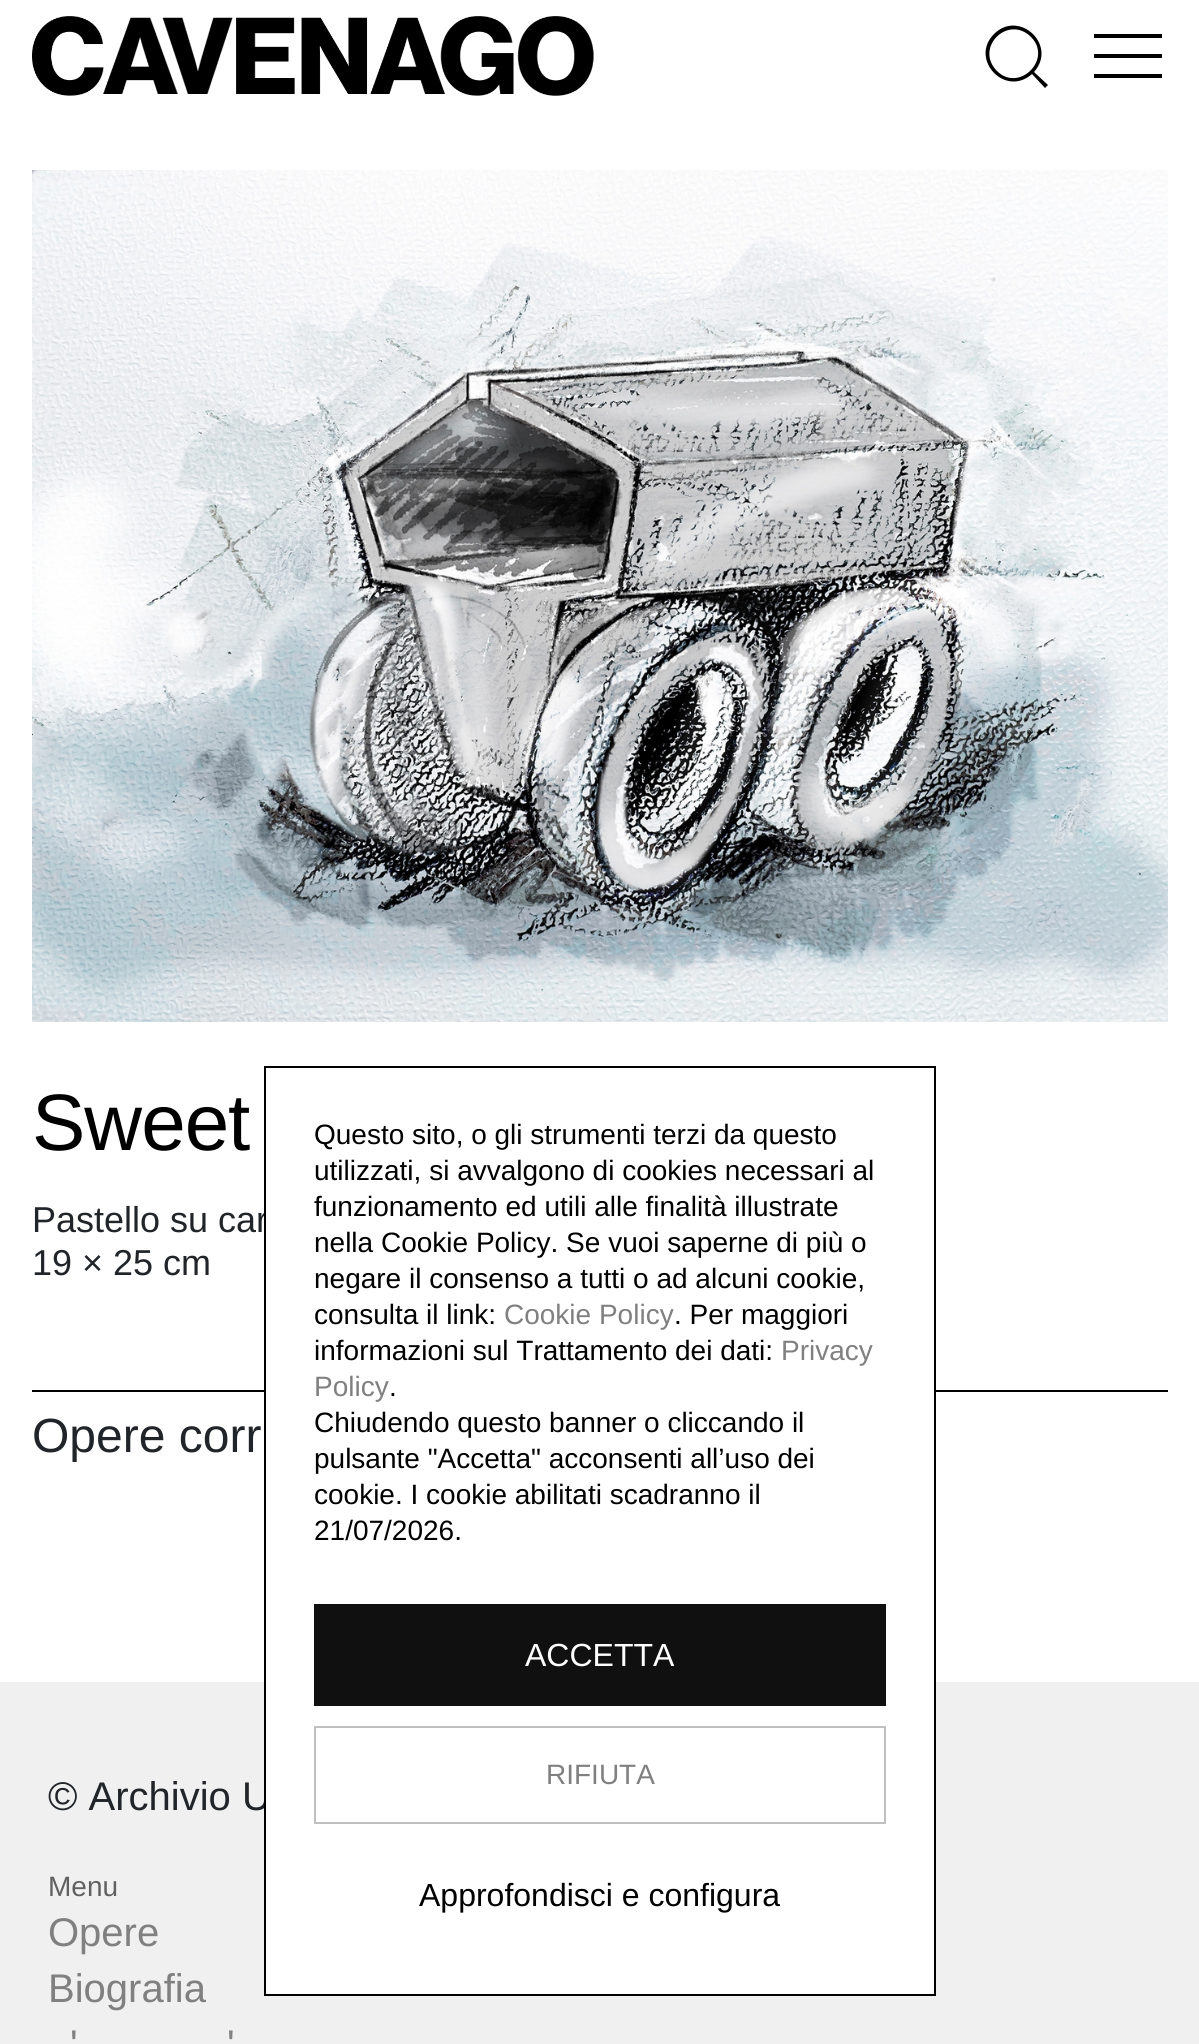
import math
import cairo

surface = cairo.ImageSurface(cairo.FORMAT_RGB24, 1199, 2044)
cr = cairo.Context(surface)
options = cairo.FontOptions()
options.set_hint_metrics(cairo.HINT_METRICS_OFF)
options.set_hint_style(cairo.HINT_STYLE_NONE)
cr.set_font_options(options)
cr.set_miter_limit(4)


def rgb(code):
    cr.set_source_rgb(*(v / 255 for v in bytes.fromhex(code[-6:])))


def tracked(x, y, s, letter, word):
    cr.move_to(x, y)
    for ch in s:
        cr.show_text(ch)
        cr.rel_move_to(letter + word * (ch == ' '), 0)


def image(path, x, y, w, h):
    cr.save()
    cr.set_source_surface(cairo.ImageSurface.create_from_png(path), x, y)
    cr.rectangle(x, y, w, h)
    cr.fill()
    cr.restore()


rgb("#ffffff")
cr.paint()
image("img/1.png", 32, 16, 562, 80)
rgb("#000000")
cr.new_path()
cr.move_to(1031, 37)
cr.curve_to(1053, 59, 1019, 93, 997, 71)
cr.curve_to(974, 48, 1008, 14, 1031, 37)
cr.close_path()
cr.move_to(1034, 72)
cr.curve_to(1058, 45, 1019, 9, 994, 34)
cr.curve_to(969, 59, 1005, 98, 1032, 74)
cr.line_to(1045, 88)
cr.line_to(1048, 85)
cr.close_path()
cr.fill()
for x, y, w, h, color in [
    (1094, 34, 68, 4, "#000000"),
    (1094, 54, 68, 4, "#000000"),
    (1094, 74, 68, 4, "#000000"),
]:
    rgb(color)
    cr.rectangle(x, y, w, h)
    cr.fill()
image("img/2.png", 32, 170, 1136, 852)
cr.rectangle(32, 1390, 1136, 2)
cr.fill()
rgb("#f0f0f0")
cr.rectangle(0, 1682, 1199, 362)
cr.fill()
cr.select_font_face("Liberation Sans")
cr.set_font_size(80)
rgb("#000000")
tracked(32, 1150, "Sweet", -1, 0)
cr.set_font_size(36)
rgb("#212529")
cr.move_to(32, 1232)
cr.show_text("Pastello su car")
cr.move_to(32, 1275)
cr.show_text("19 × 25 cm")
cr.set_font_size(48)
cr.move_to(32, 1452)
cr.show_text("Opere corr")
cr.set_font_size(40)
cr.move_to(48, 1810)
cr.show_text("© Archivio U")
rgb("#ffffff")
cr.rectangle(266, 1212, 668, 782)
cr.fill()
cr.rectangle(265, 1067, 670, 928)
rgb("#000000")
cr.stroke()
cr.set_font_size(32)
cr.move_to(419, 1906)
cr.show_text("Approfondisci e configura")
cr.rectangle(315, 1727, 570, 96)
rgb("#c0c0c0")
cr.stroke()
cr.set_font_size(28)
rgb("#808080")
cr.move_to(546, 1784)
cr.show_text("RIFIUTA")
rgb("#101010")
cr.rectangle(314, 1604, 572, 102)
cr.fill()
cr.set_font_size(32)
rgb("#ffffff")
cr.move_to(525, 1666)
cr.show_text("ACCETTA")
cr.set_font_size(28)
rgb("#000000")
for x, y, s in [
    (314, 1540, "21/07/2026."),
    (314, 1504, "cookie. I cookie abilitati scadranno il"),
    (314, 1468, "pulsante \"Accetta\" acconsenti all’uso dei"),
    (314, 1432, "Chiudendo questo banner o cliccando il"),
    (389, 1396, "."),
]:
    cr.move_to(x, y)
    cr.show_text(s)
rgb("#808080")
cr.move_to(314, 1396)
cr.show_text("Policy")
cr.move_to(781, 1360)
cr.show_text("Privacy")
rgb("#000000")
cr.move_to(314, 1360)
cr.show_text("informazioni sul Trattamento dei dati:")
cr.move_to(674, 1324)
cr.show_text(". Per maggiori")
rgb("#808080")
cr.move_to(504, 1324)
cr.show_text("Cookie Policy")
rgb("#000000")
for x, y, s in [
    (314, 1324, "consulta il link:"),
    (314, 1288, "negare il consenso a tutti o ad alcuni cookie,"),
    (314, 1252, "nella Cookie Policy. Se vuoi saperne di più o"),
    (314, 1216, "funzionamento ed utili alle finalità illustrate"),
    (314, 1180, "utilizzati, si avvalgono di cookies necessari al"),
    (314, 1144, "Questo sito, o gli strumenti terzi da questo"),
]:
    cr.move_to(x, y)
    cr.show_text(s)
rgb("#606060")
cr.move_to(48, 1896)
cr.show_text("Menu")
cr.set_font_size(40)
rgb("#808080")
for x, y, s in [
    (48, 1946, "Opere"),
    (48, 2002, "Biografia"),
    (70, 2058, "'"),
    (227, 2058, "'"),
]:
    cr.move_to(x, y)
    cr.show_text(s)
surface.write_to_png("page.png")
